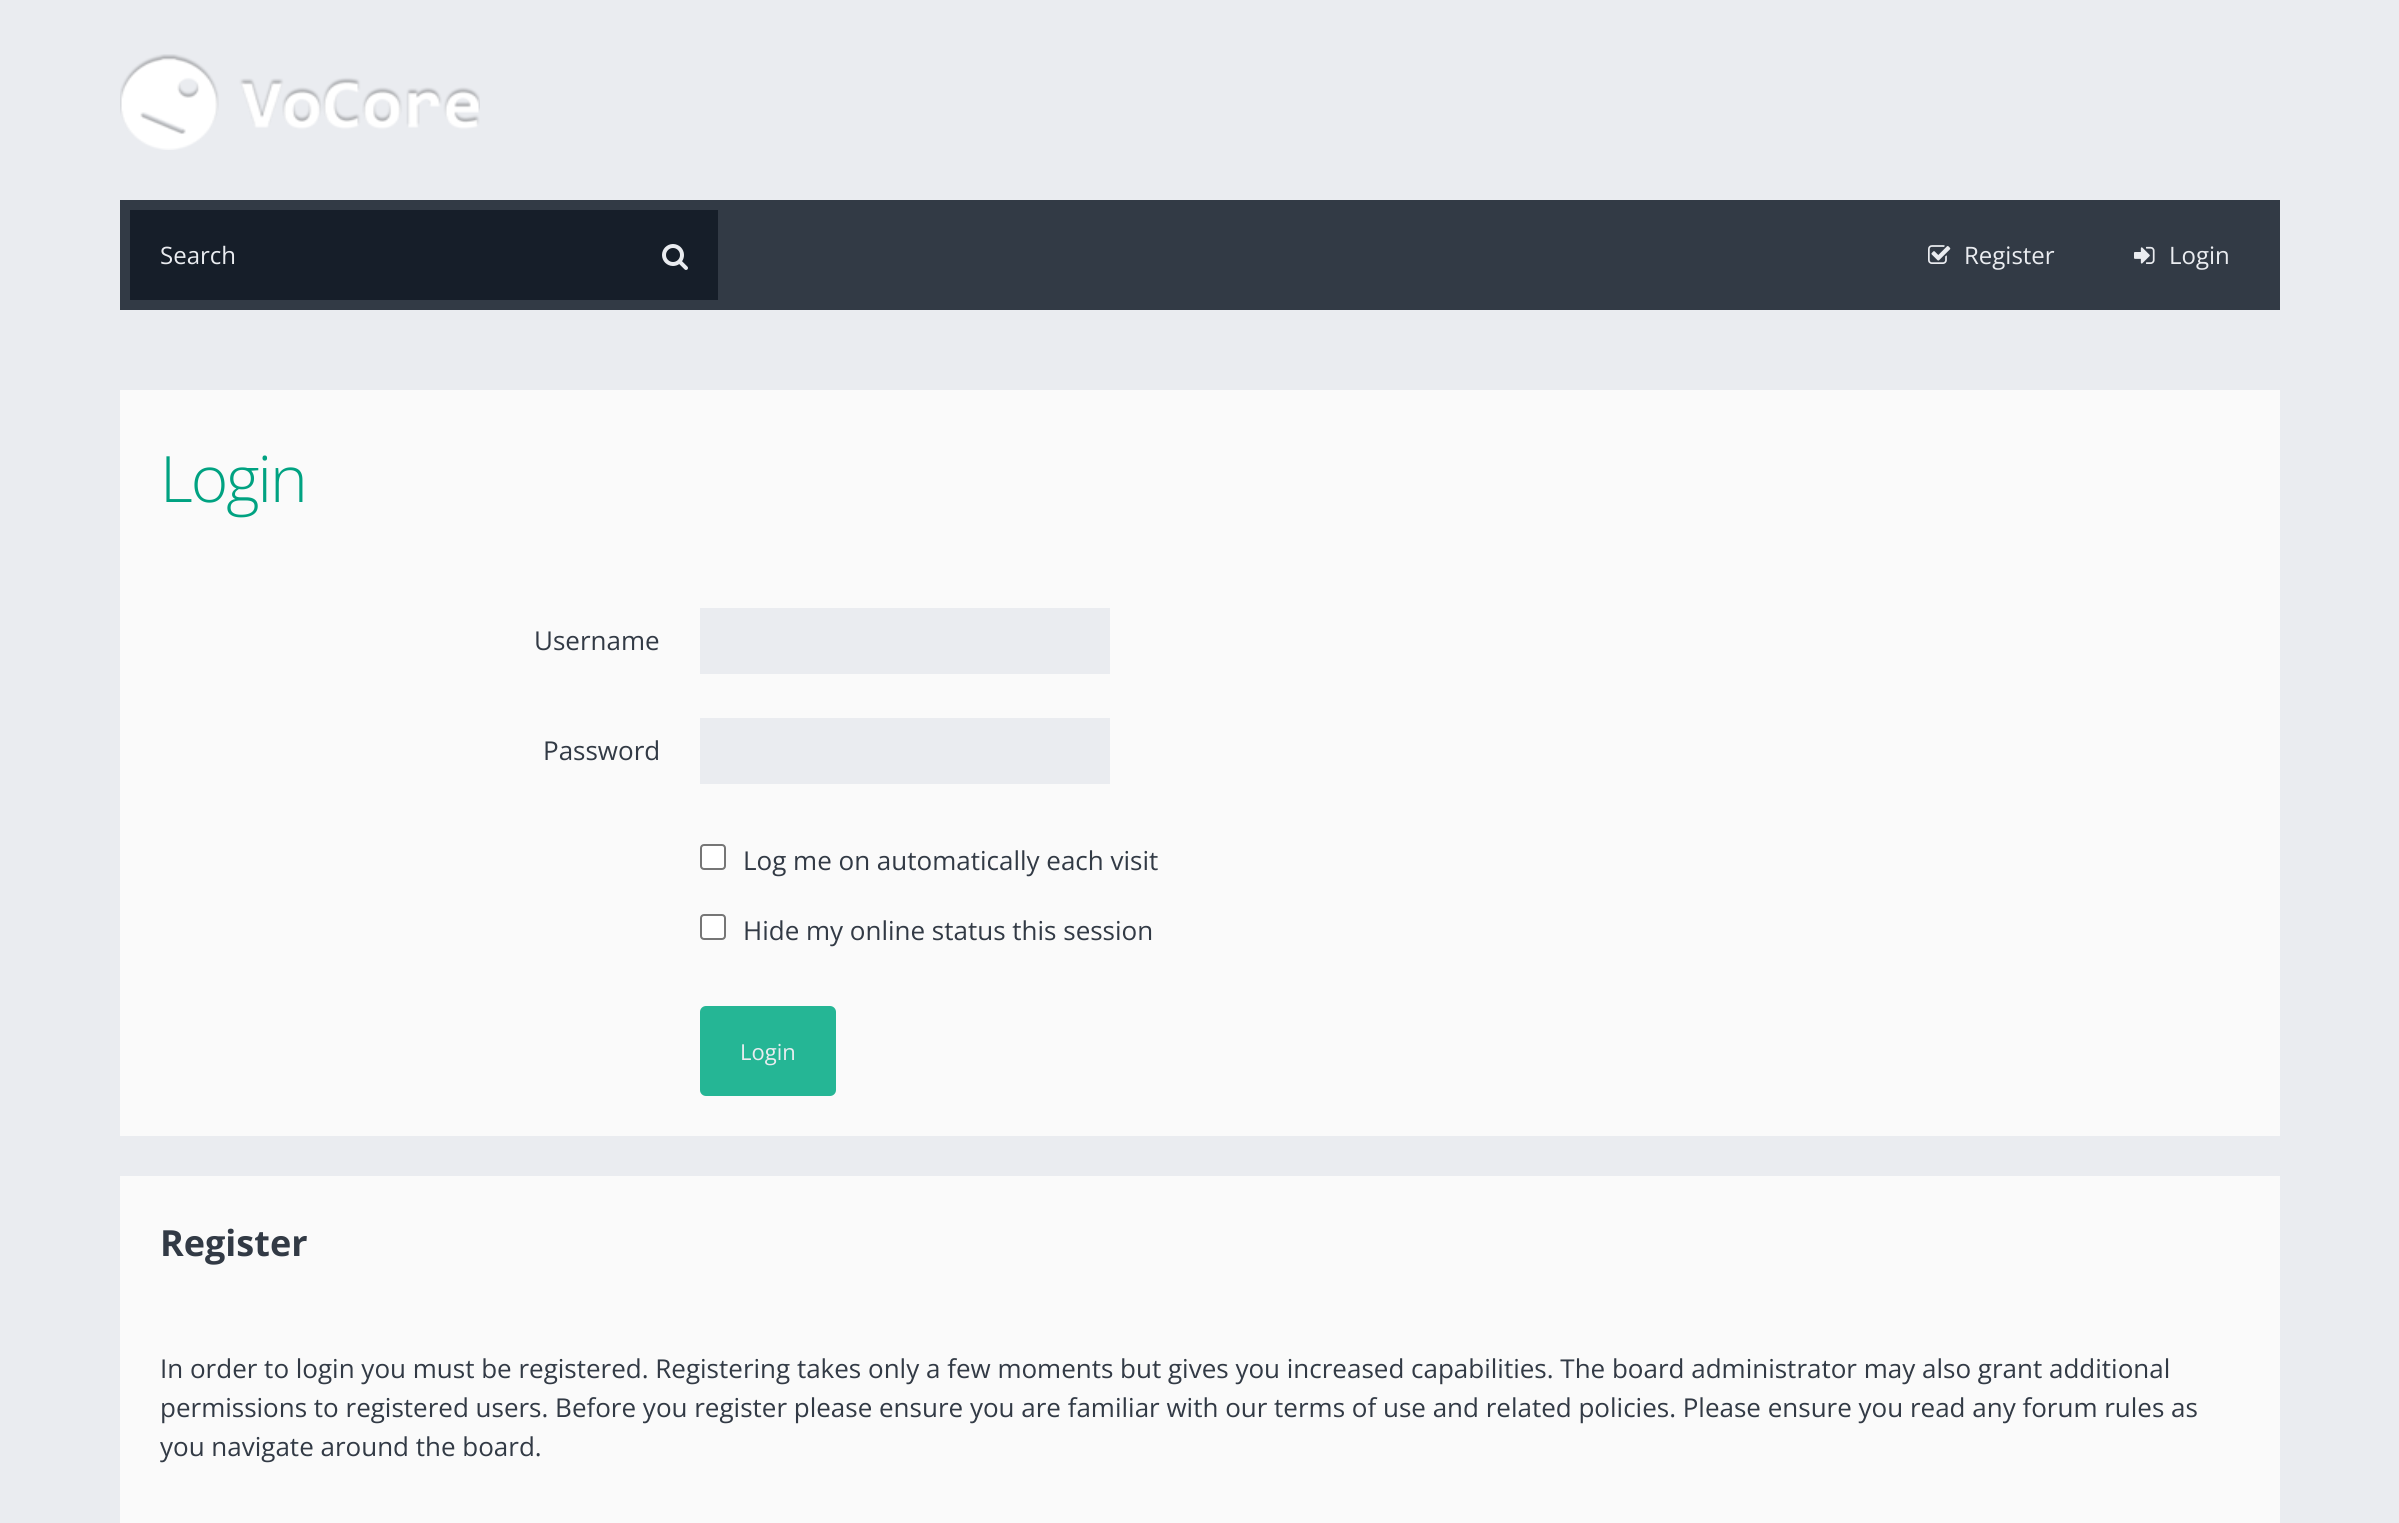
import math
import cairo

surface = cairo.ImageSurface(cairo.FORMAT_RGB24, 2399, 1523)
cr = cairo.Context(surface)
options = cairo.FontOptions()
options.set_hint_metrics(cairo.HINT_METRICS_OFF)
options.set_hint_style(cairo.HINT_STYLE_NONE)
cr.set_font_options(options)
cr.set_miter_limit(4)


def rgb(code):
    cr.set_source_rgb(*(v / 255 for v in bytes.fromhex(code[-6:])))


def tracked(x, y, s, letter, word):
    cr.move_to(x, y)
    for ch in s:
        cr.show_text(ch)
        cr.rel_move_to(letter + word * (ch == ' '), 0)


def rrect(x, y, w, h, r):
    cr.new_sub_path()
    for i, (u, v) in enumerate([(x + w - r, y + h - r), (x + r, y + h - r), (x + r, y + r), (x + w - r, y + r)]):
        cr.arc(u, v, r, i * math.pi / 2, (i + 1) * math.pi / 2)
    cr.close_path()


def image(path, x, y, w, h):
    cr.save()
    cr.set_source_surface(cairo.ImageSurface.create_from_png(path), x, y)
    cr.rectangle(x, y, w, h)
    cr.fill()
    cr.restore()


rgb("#eaecf0")
cr.paint()
image("img/1.png", 120, 54, 360, 96)
rgb("#323a45")
cr.rectangle(120, 200, 2160, 110)
cr.fill()
rgb("#161e29")
cr.rectangle(130, 210, 588, 90)
cr.fill()
image("img/2.png", 662, 244, 26, 26)
image("img/3.png", 1928, 245, 23, 19)
image("img/4.png", 2134, 246, 21, 18)
for x, y, w, h, color in [
    (120, 390, 2160, 746, "#fafafa"),
    (700, 608, 410, 66, "#eaecf0"),
    (700, 718, 410, 66, "#eaecf0"),
]:
    rgb(color)
    cr.rectangle(x, y, w, h)
    cr.fill()
rgb("#ffffff")
rrect(701, 845, 24, 24, 3)
cr.fill_preserve()
rgb("#767676")
cr.stroke()
rgb("#ffffff")
rrect(701, 915, 24, 24, 3)
cr.fill_preserve()
rgb("#767676")
cr.stroke()
rgb("#25b695")
rrect(700, 1006, 136, 90, 6)
cr.fill()
rgb("#fafafa")
cr.rectangle(120, 1176, 2160, 347)
cr.fill()
cr.select_font_face("Open Sans")
cr.set_font_size(24)
rgb("#eaecf0")
for x, y, s in [
    (160, 264, "Search"),
    (1964, 264, "Register"),
    (2169, 264, "Login"),
]:
    cr.move_to(x, y)
    cr.show_text(s)
cr.select_font_face("Open Sans Light")
cr.set_font_size(64)
rgb("#00a281")
tracked(160, 502, "Login", -2, 0)
cr.select_font_face("Open Sans")
cr.set_font_size(26)
rgb("#323a45")
for x, y, s in [
    (534, 650, "Username"),
    (543, 760, "Password"),
    (743, 870, "Log me on automatically each visit"),
    (743, 940, "Hide my online status this session"),
]:
    cr.move_to(x, y)
    cr.show_text(s)
cr.set_font_size(22)
rgb("#eaecf0")
cr.move_to(740, 1060)
cr.show_text("Login")
cr.select_font_face("Open Sans", cairo.FONT_SLANT_NORMAL, cairo.FONT_WEIGHT_BOLD)
cr.set_font_size(36)
rgb("#323a45")
cr.move_to(160, 1256)
cr.show_text("Register")
cr.select_font_face("Open Sans")
cr.set_font_size(26)
for x, y, s in [
    (160, 1378, "In order to login you must be registered. Registering takes only a few moments but gives you increased capabilities. The board administrator may also grant additional"),
    (160, 1417, "permissions to registered users. Before you register please ensure you are familiar with our terms of use and related policies. Please ensure you read any forum rules as"),
    (160, 1456, "you navigate around the board."),
]:
    cr.move_to(x, y)
    cr.show_text(s)
surface.write_to_png("page.png")
